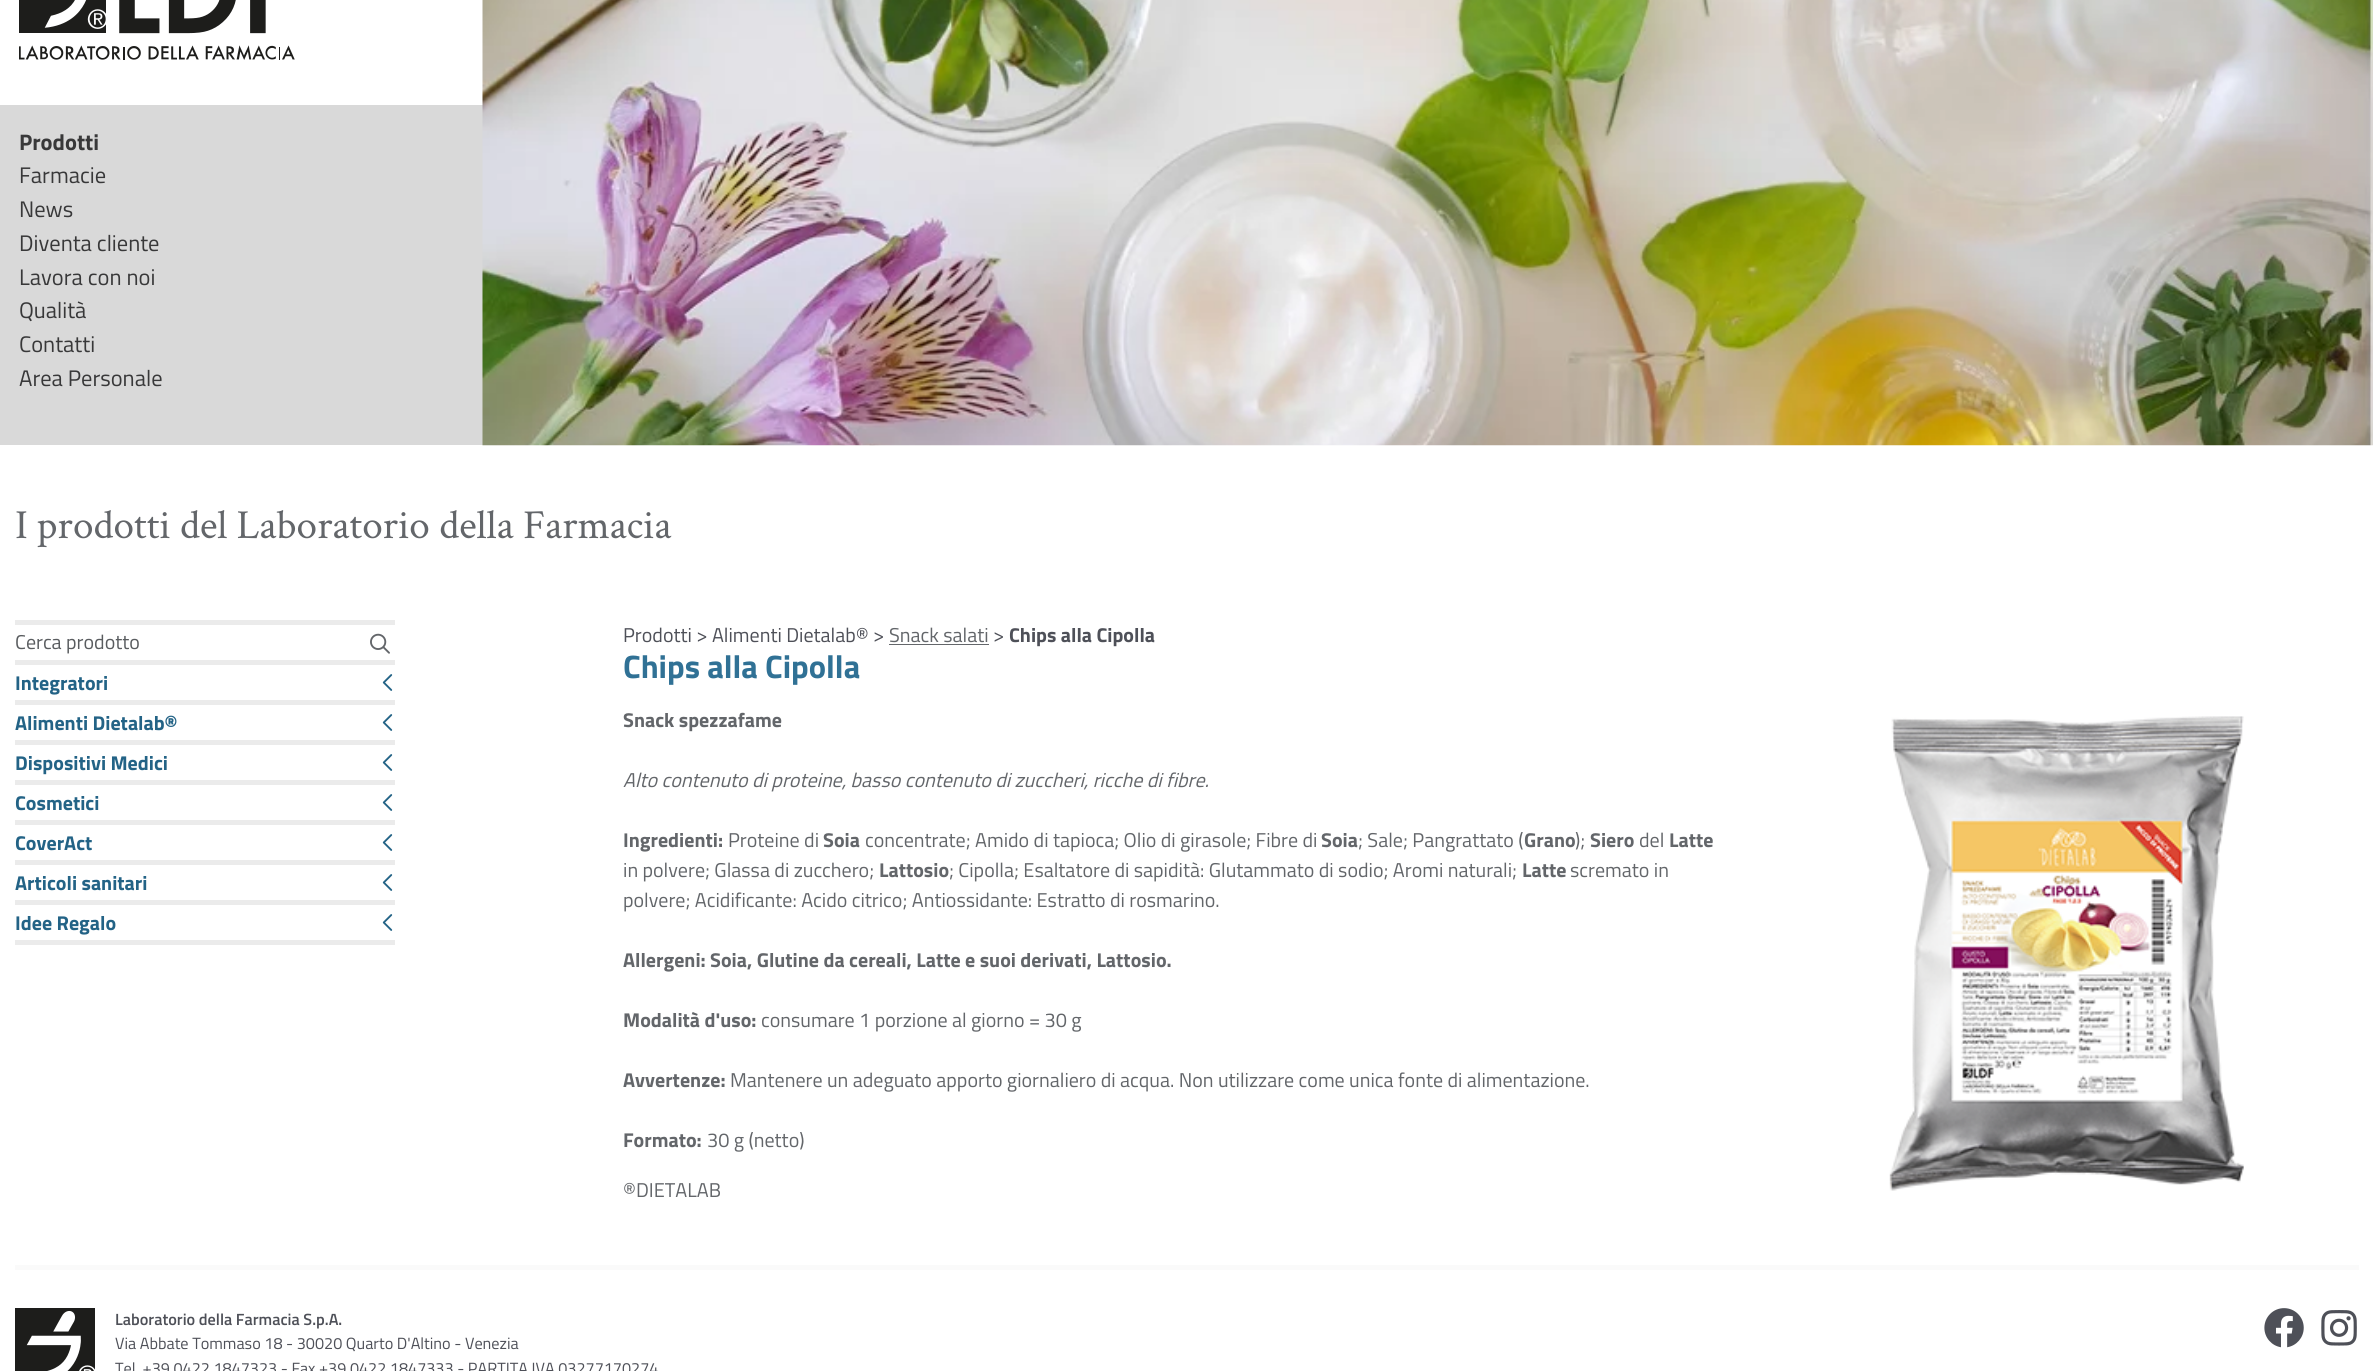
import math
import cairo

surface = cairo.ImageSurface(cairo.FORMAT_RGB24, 2373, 1371)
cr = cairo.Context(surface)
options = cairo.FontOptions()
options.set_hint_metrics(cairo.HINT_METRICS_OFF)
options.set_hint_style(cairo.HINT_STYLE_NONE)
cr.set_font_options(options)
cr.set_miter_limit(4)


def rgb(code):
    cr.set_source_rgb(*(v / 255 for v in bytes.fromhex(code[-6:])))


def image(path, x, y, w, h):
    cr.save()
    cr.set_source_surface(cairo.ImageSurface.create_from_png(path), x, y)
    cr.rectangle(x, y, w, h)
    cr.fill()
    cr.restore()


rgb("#ffffff")
cr.paint()
image("img/1.png", 19, 0, 276, 60)
rgb("#d9d9d9")
cr.rectangle(0, 105, 483, 340)
cr.fill()
image("img/2.png", 482, 0, 1891, 446)
rgb("#ebebeb")
cr.rectangle(15, 620, 380, 5)
cr.fill()
cr.rectangle(15, 660, 380, 5)
cr.fill()
image("img/3.png", 370, 633, 20, 21)
cr.rectangle(15, 700, 380, 5)
cr.fill()
image("img/4.png", 382, 674, 11, 17)
cr.rectangle(15, 740, 380, 5)
cr.fill()
image("img/4.png", 382, 714, 11, 17)
cr.rectangle(15, 780, 380, 5)
cr.fill()
image("img/4.png", 382, 754, 11, 17)
cr.rectangle(15, 820, 380, 5)
cr.fill()
image("img/4.png", 382, 794, 11, 17)
cr.rectangle(15, 860, 380, 5)
cr.fill()
image("img/4.png", 382, 834, 11, 17)
cr.rectangle(15, 900, 380, 5)
cr.fill()
image("img/4.png", 382, 874, 11, 17)
cr.rectangle(15, 940, 380, 5)
cr.fill()
image("img/4.png", 382, 914, 11, 17)
rgb("#63666a")
cr.rectangle(889, 644, 100, 1)
cr.fill()
image("img/5.png", 1889, 716, 355, 475)
rgb("#fafafa")
cr.rectangle(15, 1265, 2344, 5)
cr.fill()
image("img/6.png", 15, 1308, 80, 63)
image("img/7.png", 2264, 1308, 40, 40)
image("img/8.png", 2321, 1310, 36, 36)
cr.select_font_face("Titillium Web", cairo.FONT_SLANT_NORMAL, cairo.FONT_WEIGHT_BOLD)
cr.set_font_size(22.5)
rgb("#383839")
cr.move_to(19, 150)
cr.show_text("Prodotti")
cr.select_font_face("Titillium Web")
for x, y, s in [
    (19, 183, "Farmacie"),
    (19, 217, "News"),
    (19, 251, "Diventa cliente"),
    (19, 285, "Lavora con noi"),
    (19, 318, "Qualità"),
    (19, 352, "Contatti"),
    (19, 386, "Area Personale"),
]:
    cr.move_to(x, y)
    cr.show_text(s)
cr.select_font_face("Crimson Text")
cr.set_font_size(41.25)
rgb("#63666a")
cr.move_to(15, 538)
cr.show_text("I prodotti del Laboratorio della Farmacia")
cr.select_font_face("Titillium Web")
cr.set_font_size(20)
rgb("#595c5f")
cr.move_to(15, 649)
cr.show_text("Cerca prodotto")
cr.select_font_face("Titillium Web", cairo.FONT_SLANT_NORMAL, cairo.FONT_WEIGHT_BOLD)
rgb("#236386")
for x, y, s in [
    (15, 690, "Integratori"),
    (15, 730, "Alimenti Dietalab®"),
    (15, 770, "Dispositivi Medici"),
    (15, 810, "Cosmetici"),
    (15, 850, "CoverAct"),
    (15, 890, "Articoli sanitari"),
    (15, 930, "Idee Regalo"),
]:
    cr.move_to(x, y)
    cr.show_text(s)
cr.select_font_face("Titillium Web")
rgb("#4e5058")
cr.move_to(623, 642)
cr.show_text("Prodotti > Alimenti Dietalab® >")
rgb("#63666a")
cr.move_to(889, 642)
cr.show_text("Snack salati")
rgb("#4e5058")
cr.move_to(993, 642)
cr.show_text(">")
cr.select_font_face("Titillium Web", cairo.FONT_SLANT_NORMAL, cairo.FONT_WEIGHT_BOLD)
cr.move_to(1009, 642)
cr.show_text("Chips alla Cipolla")
cr.set_font_size(32.5)
rgb("#307195")
cr.move_to(623, 678)
cr.show_text("Chips alla Cipolla")
cr.set_font_size(20)
rgb("#63666a")
cr.move_to(623, 727)
cr.show_text("Snack spezzafame")
cr.select_font_face("Titillium Web", cairo.FONT_SLANT_ITALIC)
cr.move_to(623, 787)
cr.show_text("Alto contenuto di proteine, basso contenuto di zuccheri, ricche di fibre.")
cr.select_font_face("Titillium Web", cairo.FONT_SLANT_NORMAL, cairo.FONT_WEIGHT_BOLD)
cr.move_to(623, 847)
cr.show_text("Ingredienti:")
cr.select_font_face("Titillium Web")
cr.move_to(728, 847)
cr.show_text("Proteine di")
cr.select_font_face("Titillium Web", cairo.FONT_SLANT_NORMAL, cairo.FONT_WEIGHT_BOLD)
cr.move_to(823, 847)
cr.show_text("Soia")
cr.select_font_face("Titillium Web")
cr.move_to(865, 847)
cr.show_text("concentrate; Amido di tapioca; Olio di girasole; Fibre di")
cr.select_font_face("Titillium Web", cairo.FONT_SLANT_NORMAL, cairo.FONT_WEIGHT_BOLD)
cr.move_to(1321, 847)
cr.show_text("Soia")
cr.select_font_face("Titillium Web")
cr.move_to(1358, 847)
cr.show_text("; Sale; Pangrattato (")
cr.select_font_face("Titillium Web", cairo.FONT_SLANT_NORMAL, cairo.FONT_WEIGHT_BOLD)
cr.move_to(1524, 847)
cr.show_text("Grano")
cr.select_font_face("Titillium Web")
cr.move_to(1575, 847)
cr.show_text(");")
cr.select_font_face("Titillium Web", cairo.FONT_SLANT_NORMAL, cairo.FONT_WEIGHT_BOLD)
cr.move_to(1590, 847)
cr.show_text("Siero")
cr.select_font_face("Titillium Web")
cr.move_to(1639, 847)
cr.show_text("del")
cr.select_font_face("Titillium Web", cairo.FONT_SLANT_NORMAL, cairo.FONT_WEIGHT_BOLD)
cr.move_to(1669, 847)
cr.show_text("Latte")
cr.select_font_face("Titillium Web")
cr.move_to(623, 877)
cr.show_text("in polvere; Glassa di zucchero;")
cr.select_font_face("Titillium Web", cairo.FONT_SLANT_NORMAL, cairo.FONT_WEIGHT_BOLD)
cr.move_to(879, 877)
cr.show_text("Lattosio")
cr.select_font_face("Titillium Web")
cr.move_to(949, 877)
cr.show_text("; Cipolla; Esaltatore di sapidità: Glutammato di sodio; Aromi naturali;")
cr.select_font_face("Titillium Web", cairo.FONT_SLANT_NORMAL, cairo.FONT_WEIGHT_BOLD)
cr.move_to(1522, 877)
cr.show_text("Latte")
cr.select_font_face("Titillium Web")
cr.move_to(1570, 877)
cr.show_text("scremato in")
cr.move_to(623, 907)
cr.show_text("polvere; Acidificante: Acido citrico; Antiossidante: Estratto di rosmarino.")
cr.select_font_face("Titillium Web", cairo.FONT_SLANT_NORMAL, cairo.FONT_WEIGHT_BOLD)
cr.move_to(623, 967)
cr.show_text("Allergeni: Soia, Glutine da cereali, Latte e suoi derivati, Lattosio.")
cr.move_to(623, 1027)
cr.show_text("Modalità d'uso:")
cr.select_font_face("Titillium Web")
cr.move_to(761, 1027)
cr.show_text("consumare 1 porzione al giorno = 30 g")
cr.select_font_face("Titillium Web", cairo.FONT_SLANT_NORMAL, cairo.FONT_WEIGHT_BOLD)
cr.move_to(623, 1087)
cr.show_text("Avvertenze:")
cr.select_font_face("Titillium Web")
cr.move_to(730, 1087)
cr.show_text("Mantenere un adeguato apporto giornaliero di acqua. Non utilizzare come unica fonte di alimentazione.")
cr.select_font_face("Titillium Web", cairo.FONT_SLANT_NORMAL, cairo.FONT_WEIGHT_BOLD)
cr.move_to(623, 1147)
cr.show_text("Formato:")
cr.select_font_face("Titillium Web")
cr.move_to(707, 1147)
cr.show_text("30 g (netto)")
cr.move_to(623, 1197)
cr.show_text("®DIETALAB")
cr.select_font_face("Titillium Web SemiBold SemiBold")
cr.set_font_size(16.25)
rgb("#4e5058")
cr.move_to(115, 1325)
cr.show_text("Laboratorio della Farmacia S.p.A.")
cr.select_font_face("Titillium Web")
cr.move_to(115, 1349)
cr.show_text("Via Abbate Tommaso 18 - 30020 Quarto D'Altino - Venezia")
cr.move_to(115, 1374)
cr.show_text("Tel. +39 0422 1847323 - Fax +39 0422 1847333 - PARTITA IVA 03277170274")
surface.write_to_png("page.png")
